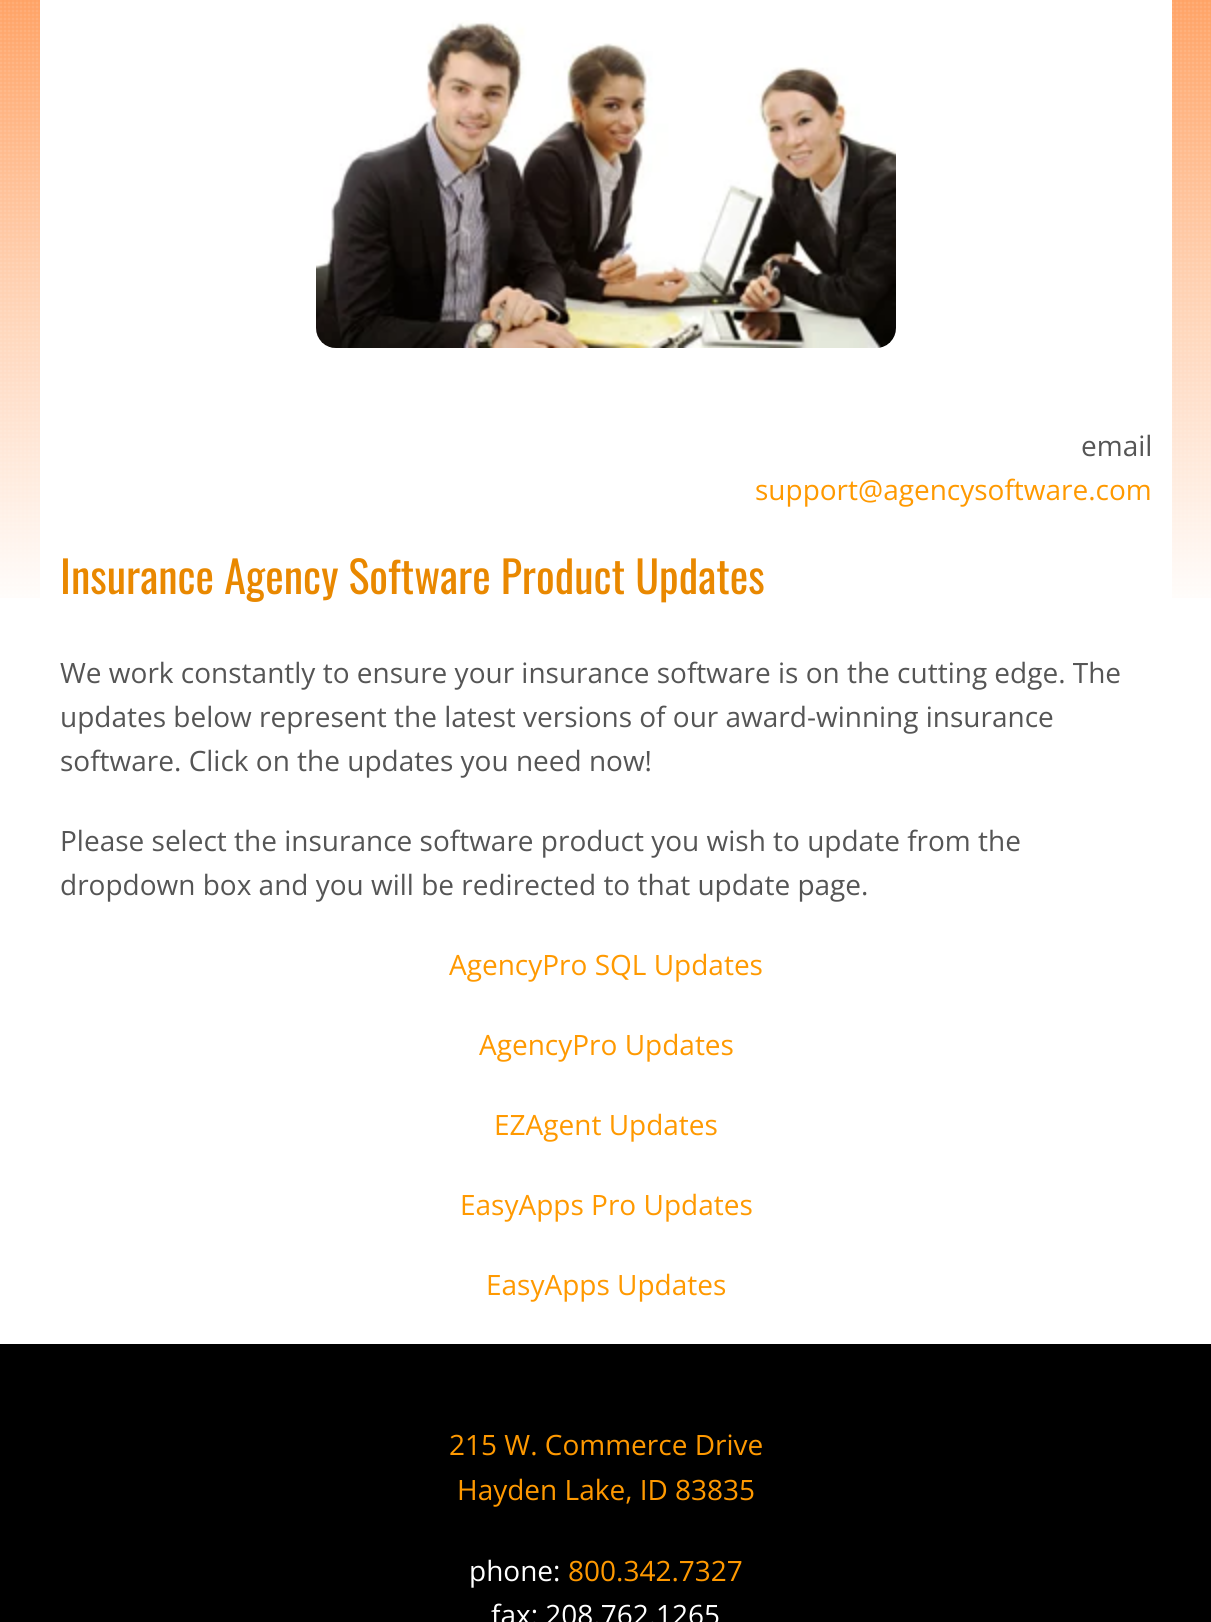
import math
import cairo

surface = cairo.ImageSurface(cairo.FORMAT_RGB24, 1211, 1622)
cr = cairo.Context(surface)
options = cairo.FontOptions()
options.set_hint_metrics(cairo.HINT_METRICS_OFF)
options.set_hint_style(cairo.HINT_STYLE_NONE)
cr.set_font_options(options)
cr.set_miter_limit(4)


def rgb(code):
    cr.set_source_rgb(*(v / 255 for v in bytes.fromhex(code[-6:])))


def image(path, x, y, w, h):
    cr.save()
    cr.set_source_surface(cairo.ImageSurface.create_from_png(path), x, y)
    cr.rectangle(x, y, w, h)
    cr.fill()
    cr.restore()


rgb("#ffffff")
cr.paint()
image("img/1.png", 0, 0, 1211, 598)
rgb("#ffffff")
cr.rectangle(40, 0, 1132, 598)
cr.fill()
image("img/2.png", 316, 20, 580, 328)
rgb("#000000")
cr.rectangle(0, 1344, 1211, 278)
cr.fill()
cr.select_font_face("Open Sans")
cr.set_font_size(28)
rgb("#555555")
cr.move_to(1081, 456)
cr.show_text("email")
rgb("#ff9900")
cr.move_to(755, 500)
cr.show_text("support@agencysoftware.com")
cr.select_font_face("Oswald")
cr.set_font_size(44)
rgb("#e98800")
cr.move_to(60, 594)
cr.show_text("Insurance Agency Software Product Updates")
cr.select_font_face("Open Sans")
cr.set_font_size(28)
rgb("#555555")
for x, y, s in [
    (60, 683, "We work constantly to ensure your insurance software is on the cutting edge. The"),
    (60, 727, "updates below represent the latest versions of our award-winning insurance"),
    (60, 771, "software. Click on the updates you need now!"),
    (60, 851, "Please select the insurance software product you wish to update from the"),
    (60, 895, "dropdown box and you will be redirected to that update page."),
]:
    cr.move_to(x, y)
    cr.show_text(s)
rgb("#ff9900")
for x, y, s in [
    (449, 975, "AgencyPro SQL Updates"),
    (479, 1055, "AgencyPro Updates"),
    (494, 1135, "EZAgent Updates"),
    (460, 1215, "EasyApps Pro Updates"),
    (486, 1295, "EasyApps Updates"),
    (449, 1455, "215 W. Commerce Drive"),
    (457, 1500, "Hayden Lake, ID 83835"),
]:
    cr.move_to(x, y)
    cr.show_text(s)
rgb("#ffffff")
cr.move_to(469, 1581)
cr.show_text("phone:")
rgb("#ff9900")
cr.move_to(568, 1581)
cr.show_text("800.342.7327")
rgb("#ffffff")
cr.move_to(491, 1625)
cr.show_text("fax: 208.762.1265")
surface.write_to_png("page.png")
